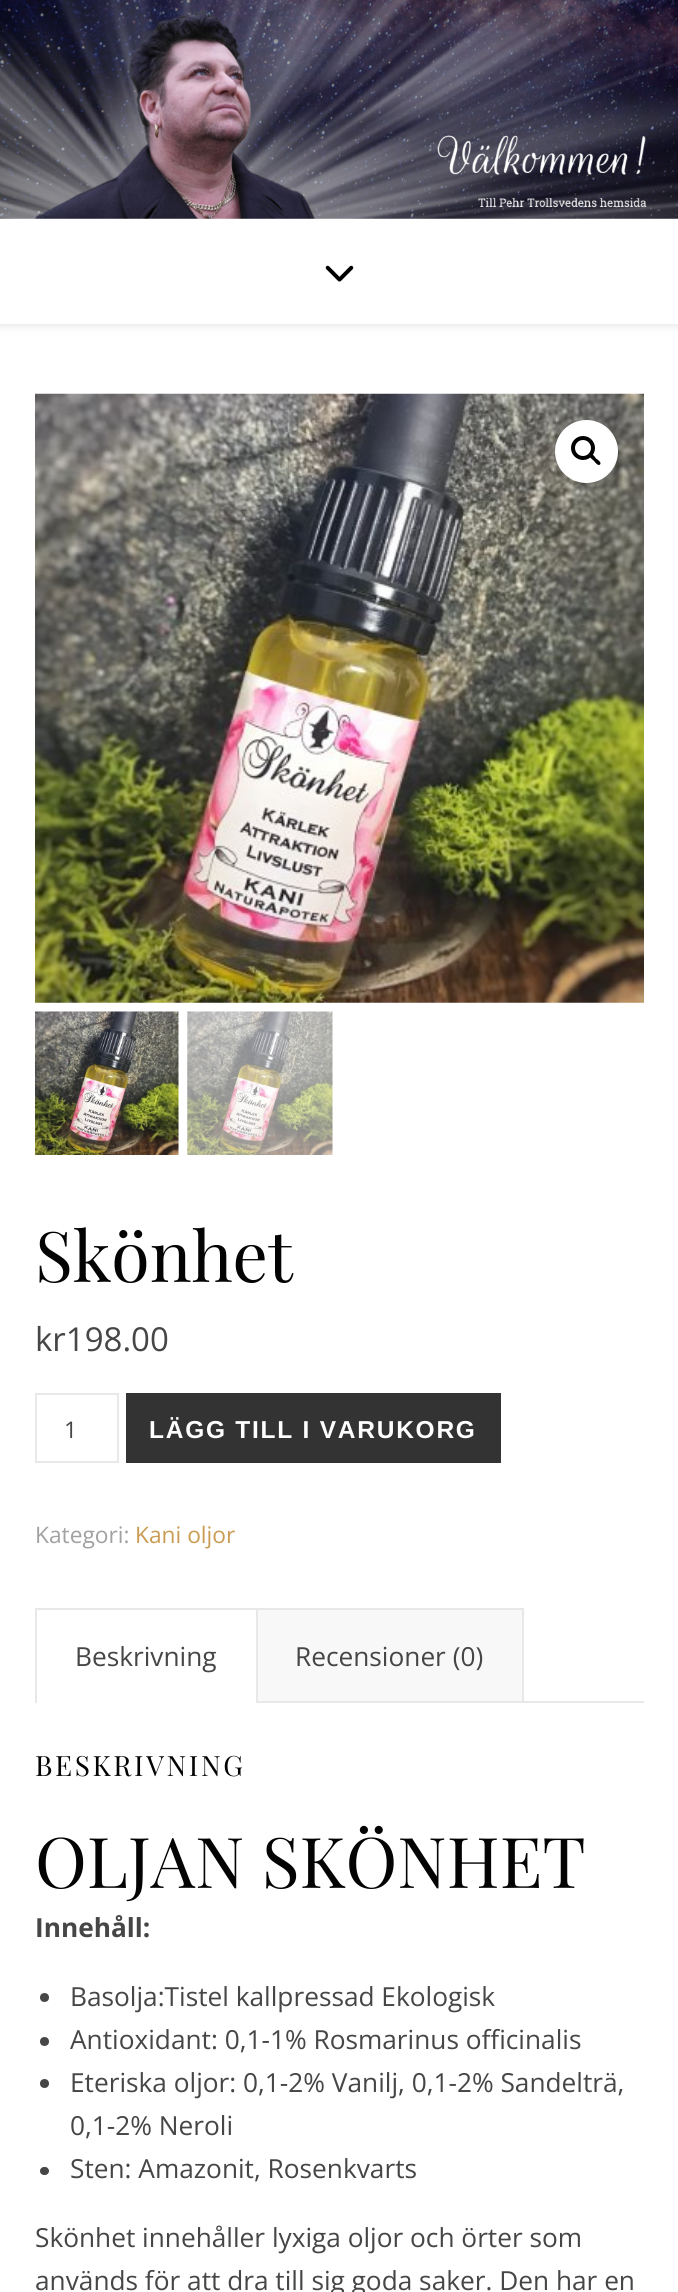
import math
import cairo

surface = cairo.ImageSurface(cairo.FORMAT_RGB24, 678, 2292)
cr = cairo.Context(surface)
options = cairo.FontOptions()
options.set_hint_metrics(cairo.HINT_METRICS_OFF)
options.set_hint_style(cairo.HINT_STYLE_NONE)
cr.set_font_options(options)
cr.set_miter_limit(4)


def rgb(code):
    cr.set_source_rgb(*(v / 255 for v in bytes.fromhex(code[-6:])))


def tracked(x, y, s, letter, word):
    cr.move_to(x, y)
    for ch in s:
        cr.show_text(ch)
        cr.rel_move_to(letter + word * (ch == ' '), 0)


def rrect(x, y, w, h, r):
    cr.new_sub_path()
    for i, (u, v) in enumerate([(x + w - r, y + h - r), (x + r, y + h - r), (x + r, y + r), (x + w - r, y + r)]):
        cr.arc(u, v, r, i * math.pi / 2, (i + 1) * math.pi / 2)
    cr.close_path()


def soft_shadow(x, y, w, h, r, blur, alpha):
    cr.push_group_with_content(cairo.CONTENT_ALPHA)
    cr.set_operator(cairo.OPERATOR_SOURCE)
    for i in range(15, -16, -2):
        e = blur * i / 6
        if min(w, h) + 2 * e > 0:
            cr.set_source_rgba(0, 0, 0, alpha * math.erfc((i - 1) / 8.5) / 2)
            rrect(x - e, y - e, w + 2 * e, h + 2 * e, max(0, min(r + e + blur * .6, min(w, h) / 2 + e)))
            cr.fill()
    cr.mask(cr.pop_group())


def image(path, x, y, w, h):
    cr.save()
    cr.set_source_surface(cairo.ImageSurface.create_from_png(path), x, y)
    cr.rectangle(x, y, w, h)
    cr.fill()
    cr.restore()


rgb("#ffffff")
cr.paint()
image("img/1.png", 0, 0, 678, 219)
rgb("#000000")
soft_shadow(0, 221, 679, 105, 0, 4.5, 0.1)
rgb("#ffffff")
cr.rectangle(0, 219, 678, 105)
cr.fill()
image("img/2.png", 325, 265, 29, 17)
image("img/3.png", 35, 393, 609, 610)
cr.arc(586.5, 451.5, 31.5, 0, 2 * math.pi)
cr.fill()
cr.arc(583, 448, 10, 0, 2 * math.pi)
rgb("#000000")
cr.set_line_width(4)
cr.stroke()
cr.new_path()
cr.move_to(590, 454.5)
cr.curve_to(592, 452.5, 595, 457, 596, 458.5)
cr.curve_to(597.5, 459.5, 602, 462.5, 600, 464.5)
cr.curve_to(598, 466.5, 595, 462, 594, 461)
cr.curve_to(592.5, 459.5, 588, 456.5, 590, 454.5)
cr.close_path()
cr.fill()
image("img/4.png", 35, 1011, 144, 144)
image("img/5.png", 187, 1011, 146, 144)
cr.rectangle(36, 1394, 82, 68)
rgb("#e8e8e8")
cr.set_line_width(2)
cr.stroke()
for x, y, w, h, color in [
    (126, 1393, 375, 70, "#333333"),
    (35, 1608, 488, 2, "#e8e8e8"),
    (256, 1608, 2, 95, "#e8e8e8"),
    (35, 1608, 2, 95, "#e8e8e8"),
    (258, 1610, 264, 91, "#f8f8f8"),
    (522, 1608, 2, 95, "#e8e8e8"),
    (258, 1701, 386, 2, "#e8e8e8"),
]:
    rgb(color)
    cr.rectangle(x, y, w, h)
    cr.fill()
rgb("#464646")
cr.arc(44.5, 1997.5, 4.5, 0, 2 * math.pi)
cr.fill()
cr.arc(44.5, 2041.5, 4.5, 0, 2 * math.pi)
cr.fill()
cr.arc(44.5, 2083.5, 4.5, 0, 2 * math.pi)
cr.fill()
rrect(40, 2167, 9, 8, 4)
cr.fill()
cr.select_font_face("Playfair Display")
cr.set_font_size(70)
rgb("#030303")
cr.move_to(35, 1282)
cr.show_text("Skönhet")
cr.select_font_face("Open Sans")
cr.set_font_size(33)
rgb("#464646")
cr.move_to(35, 1351)
cr.show_text("kr198.00")
cr.set_font_size(23)
cr.move_to(64, 1438)
cr.show_text("1")
cr.select_font_face("Liberation Sans", cairo.FONT_SLANT_NORMAL, cairo.FONT_WEIGHT_BOLD)
cr.set_font_size(24.5)
rgb("#ffffff")
tracked(149, 1438, "LÄGG TILL I VARUKORG", 1.75, 0)
cr.select_font_face("Open Sans")
cr.set_font_size(22.75)
rgb("#a1a1a1")
cr.move_to(35, 1543)
cr.show_text("Kategori:")
rgb("#ca9b52")
cr.move_to(135, 1543)
cr.show_text("Kani oljor")
cr.set_font_size(26.25)
rgb("#464646")
cr.move_to(75, 1666)
cr.show_text("Beskrivning")
cr.move_to(295, 1666)
cr.show_text("Recensioner (0)")
cr.select_font_face("Playfair Display")
cr.set_font_size(28)
rgb("#030303")
tracked(35, 1776, "BESKRIVNING", 2.6, 0)
cr.set_font_size(70)
cr.move_to(35, 1888)
cr.show_text("OLJAN SKÖNHET")
cr.select_font_face("Open Sans", cairo.FONT_SLANT_NORMAL, cairo.FONT_WEIGHT_BOLD)
cr.set_font_size(26.25)
rgb("#464646")
cr.move_to(35, 1937)
cr.show_text("Innehåll:")
cr.select_font_face("Open Sans")
for x, y, s in [
    (70, 2006, "Basolja:Tistel kallpressad Ekologisk"),
    (70, 2049, "Antioxidant: 0,1-1% Rosmarinus officinalis"),
    (70, 2092, "Eteriska oljor: 0,1-2% Vanilj, 0,1-2% Sandelträ,"),
    (70, 2135, "0,1-2% Neroli"),
    (70, 2178, "Sten: Amazonit, Rosenkvarts"),
    (35, 2247, "Skönhet innehåller lyxiga oljor och örter som"),
    (35, 2290, "används för att dra till sig goda saker. Den har en"),
]:
    cr.move_to(x, y)
    cr.show_text(s)
surface.write_to_png("page.png")
